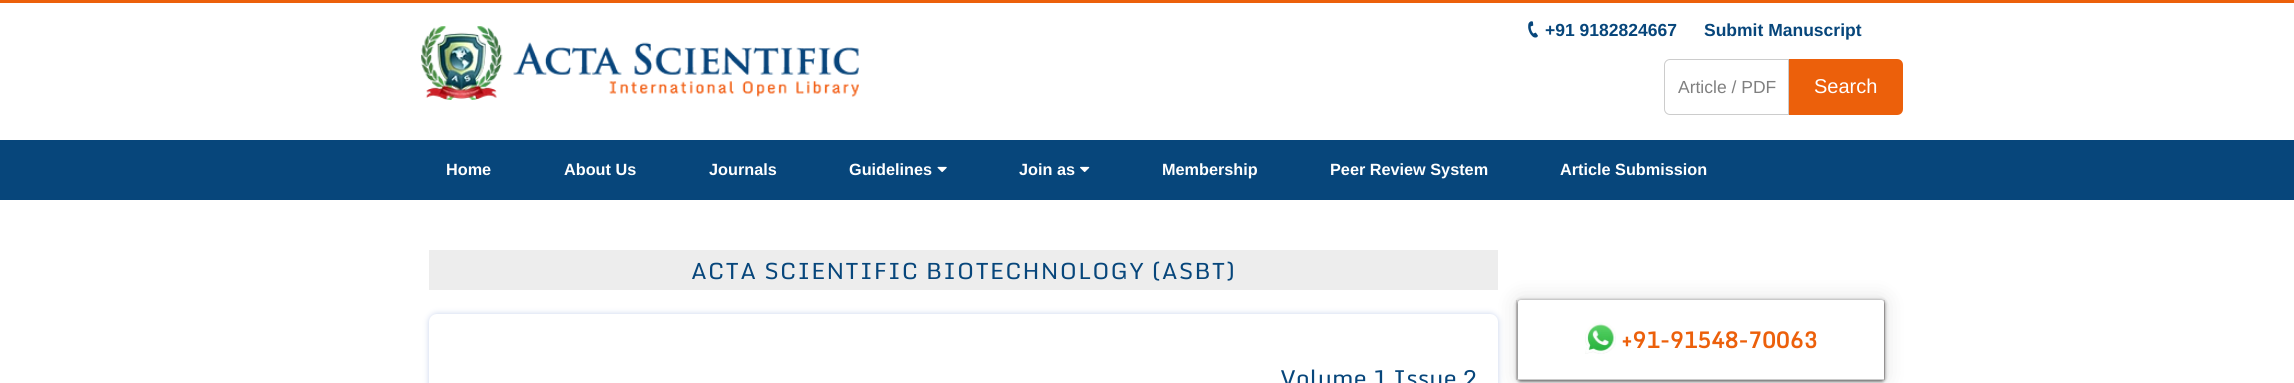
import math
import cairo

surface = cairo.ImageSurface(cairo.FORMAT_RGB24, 2294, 383)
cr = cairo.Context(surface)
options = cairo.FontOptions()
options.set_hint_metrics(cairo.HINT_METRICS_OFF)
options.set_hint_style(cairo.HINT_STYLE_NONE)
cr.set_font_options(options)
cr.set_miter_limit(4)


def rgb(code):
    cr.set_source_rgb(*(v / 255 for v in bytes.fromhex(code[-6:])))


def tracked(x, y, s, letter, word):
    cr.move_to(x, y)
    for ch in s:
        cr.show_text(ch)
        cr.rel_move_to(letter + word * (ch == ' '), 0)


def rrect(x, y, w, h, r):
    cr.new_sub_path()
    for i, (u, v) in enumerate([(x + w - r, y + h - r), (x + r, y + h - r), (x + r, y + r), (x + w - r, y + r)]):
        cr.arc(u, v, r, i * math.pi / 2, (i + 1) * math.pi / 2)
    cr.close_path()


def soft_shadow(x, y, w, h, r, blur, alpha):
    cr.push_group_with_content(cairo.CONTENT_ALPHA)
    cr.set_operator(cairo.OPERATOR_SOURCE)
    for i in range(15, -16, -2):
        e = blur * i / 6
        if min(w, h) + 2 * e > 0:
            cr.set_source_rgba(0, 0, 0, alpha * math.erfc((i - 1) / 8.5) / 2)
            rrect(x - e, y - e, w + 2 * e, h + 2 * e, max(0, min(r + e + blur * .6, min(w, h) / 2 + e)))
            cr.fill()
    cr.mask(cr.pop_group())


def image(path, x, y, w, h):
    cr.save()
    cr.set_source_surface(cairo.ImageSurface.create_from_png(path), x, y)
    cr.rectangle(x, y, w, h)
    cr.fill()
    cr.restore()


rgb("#ffffff")
cr.paint()
rgb("#ec600b")
cr.rectangle(0, 0, 2294, 3)
cr.fill()
image("img/1.png", 421, 26, 438, 74)
image("img/2.png", 1528, 21, 10, 17)
cr.new_path()
cr.move_to(1670, 59.5)
cr.line_to(1788.5, 59.5)
cr.line_to(1788.5, 114.5)
cr.line_to(1670, 114.5)
cr.curve_to(1667, 114.5, 1664.5, 112, 1664.5, 109)
cr.line_to(1664.5, 65)
cr.curve_to(1664.5, 62, 1667, 59.5, 1670, 59.5)
cr.close_path()
rgb("#cccccc")
cr.set_line_width(1)
cr.stroke()
rgb("#ec600b")
cr.new_path()
cr.move_to(1789, 59)
cr.line_to(1897, 59)
cr.curve_to(1900.5, 59, 1903, 61.5, 1903, 65)
cr.line_to(1903, 109)
cr.curve_to(1903, 112.5, 1900.5, 115, 1897, 115)
cr.line_to(1789, 115)
cr.close_path()
cr.fill()
rgb("#07467b")
cr.rectangle(0, 140, 2294, 60)
cr.fill()
image("img/3.png", 937, 166, 10, 6)
image("img/4.png", 1080, 166, 10, 6)
for x, y, w, h, color in [
    (1517, 300, 367, 80, "#f4f5f6"),
    (1884, 300, 1, 80, "#e2dede"),
    (1516, 300, 1, 80, "#e2dede"),
]:
    rgb(color)
    cr.rectangle(x, y, w, h)
    cr.fill()
rgb("#000000")
soft_shadow(1518, 300, 366, 80, 2.5, 11, 0.13)
rgb("#ededed")
cr.rectangle(429, 250, 1069, 40)
cr.fill()
rgb("#c8d3ec")
soft_shadow(429, 314, 1069, 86, 8, 3, 1)
rgb("#ffffff")
rrect(429, 314, 1069, 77, 8)
cr.fill()
rgb("#000000")
soft_shadow(1518, 301, 366, 80, 2.5, 2, 0.73)
rgb("#ffffff")
cr.new_path()
cr.move_to(1520.5, 300)
cr.line_to(1881.5, 300)
cr.curve_to(1883, 300, 1884, 301, 1884, 302.5)
cr.line_to(1884, 380)
cr.line_to(1518, 380)
cr.line_to(1518, 302.5)
cr.curve_to(1518, 301, 1519, 300, 1520.5, 300)
cr.close_path()
cr.fill()
rgb("#cbcbcb")
cr.rectangle(1518, 379, 366, 1)
cr.fill()
image("img/5.png", 1585, 322, 31, 32)
cr.select_font_face("Liberation Sans", cairo.FONT_SLANT_NORMAL, cairo.FONT_WEIGHT_BOLD)
cr.set_font_size(17.5)
rgb("#07467b")
cr.move_to(1545, 36)
cr.show_text("+91 9182824667")
cr.move_to(1704, 36)
cr.show_text("Submit Manuscript")
cr.select_font_face("Liberation Sans")
rgb("#808080")
cr.move_to(1678, 93)
cr.show_text("Article / PDF")
cr.set_font_size(20)
rgb("#ffffff")
cr.move_to(1814, 93)
cr.show_text("Search")
cr.select_font_face("Liberation Sans", cairo.FONT_SLANT_NORMAL, cairo.FONT_WEIGHT_BOLD)
cr.set_font_size(16.25)
for x, y, s in [
    (446, 175, "Home"),
    (564, 175, "About Us"),
    (709, 175, "Journals"),
    (849, 175, "Guidelines"),
    (1019, 175, "Join as"),
    (1162, 175, "Membership"),
    (1330, 175, "Peer Review System"),
    (1560, 175, "Article Submission"),
]:
    cr.move_to(x, y)
    cr.show_text(s)
cr.select_font_face("Monda")
cr.set_font_size(22.75)
rgb("#07467b")
tracked(691, 279, "ACTA SCIENTIFIC BIOTECHNOLOGY (ASBT)", 1.25, 0)
cr.set_font_size(23.75)
cr.move_to(1280, 387)
cr.show_text("Volume 1 Issue 2")
cr.select_font_face("Monda", cairo.FONT_SLANT_NORMAL, cairo.FONT_WEIGHT_BOLD)
cr.set_font_size(22.5)
rgb("#ec600b")
cr.move_to(1621, 348)
cr.show_text("+91-91548-70063")
surface.write_to_png("page.png")
